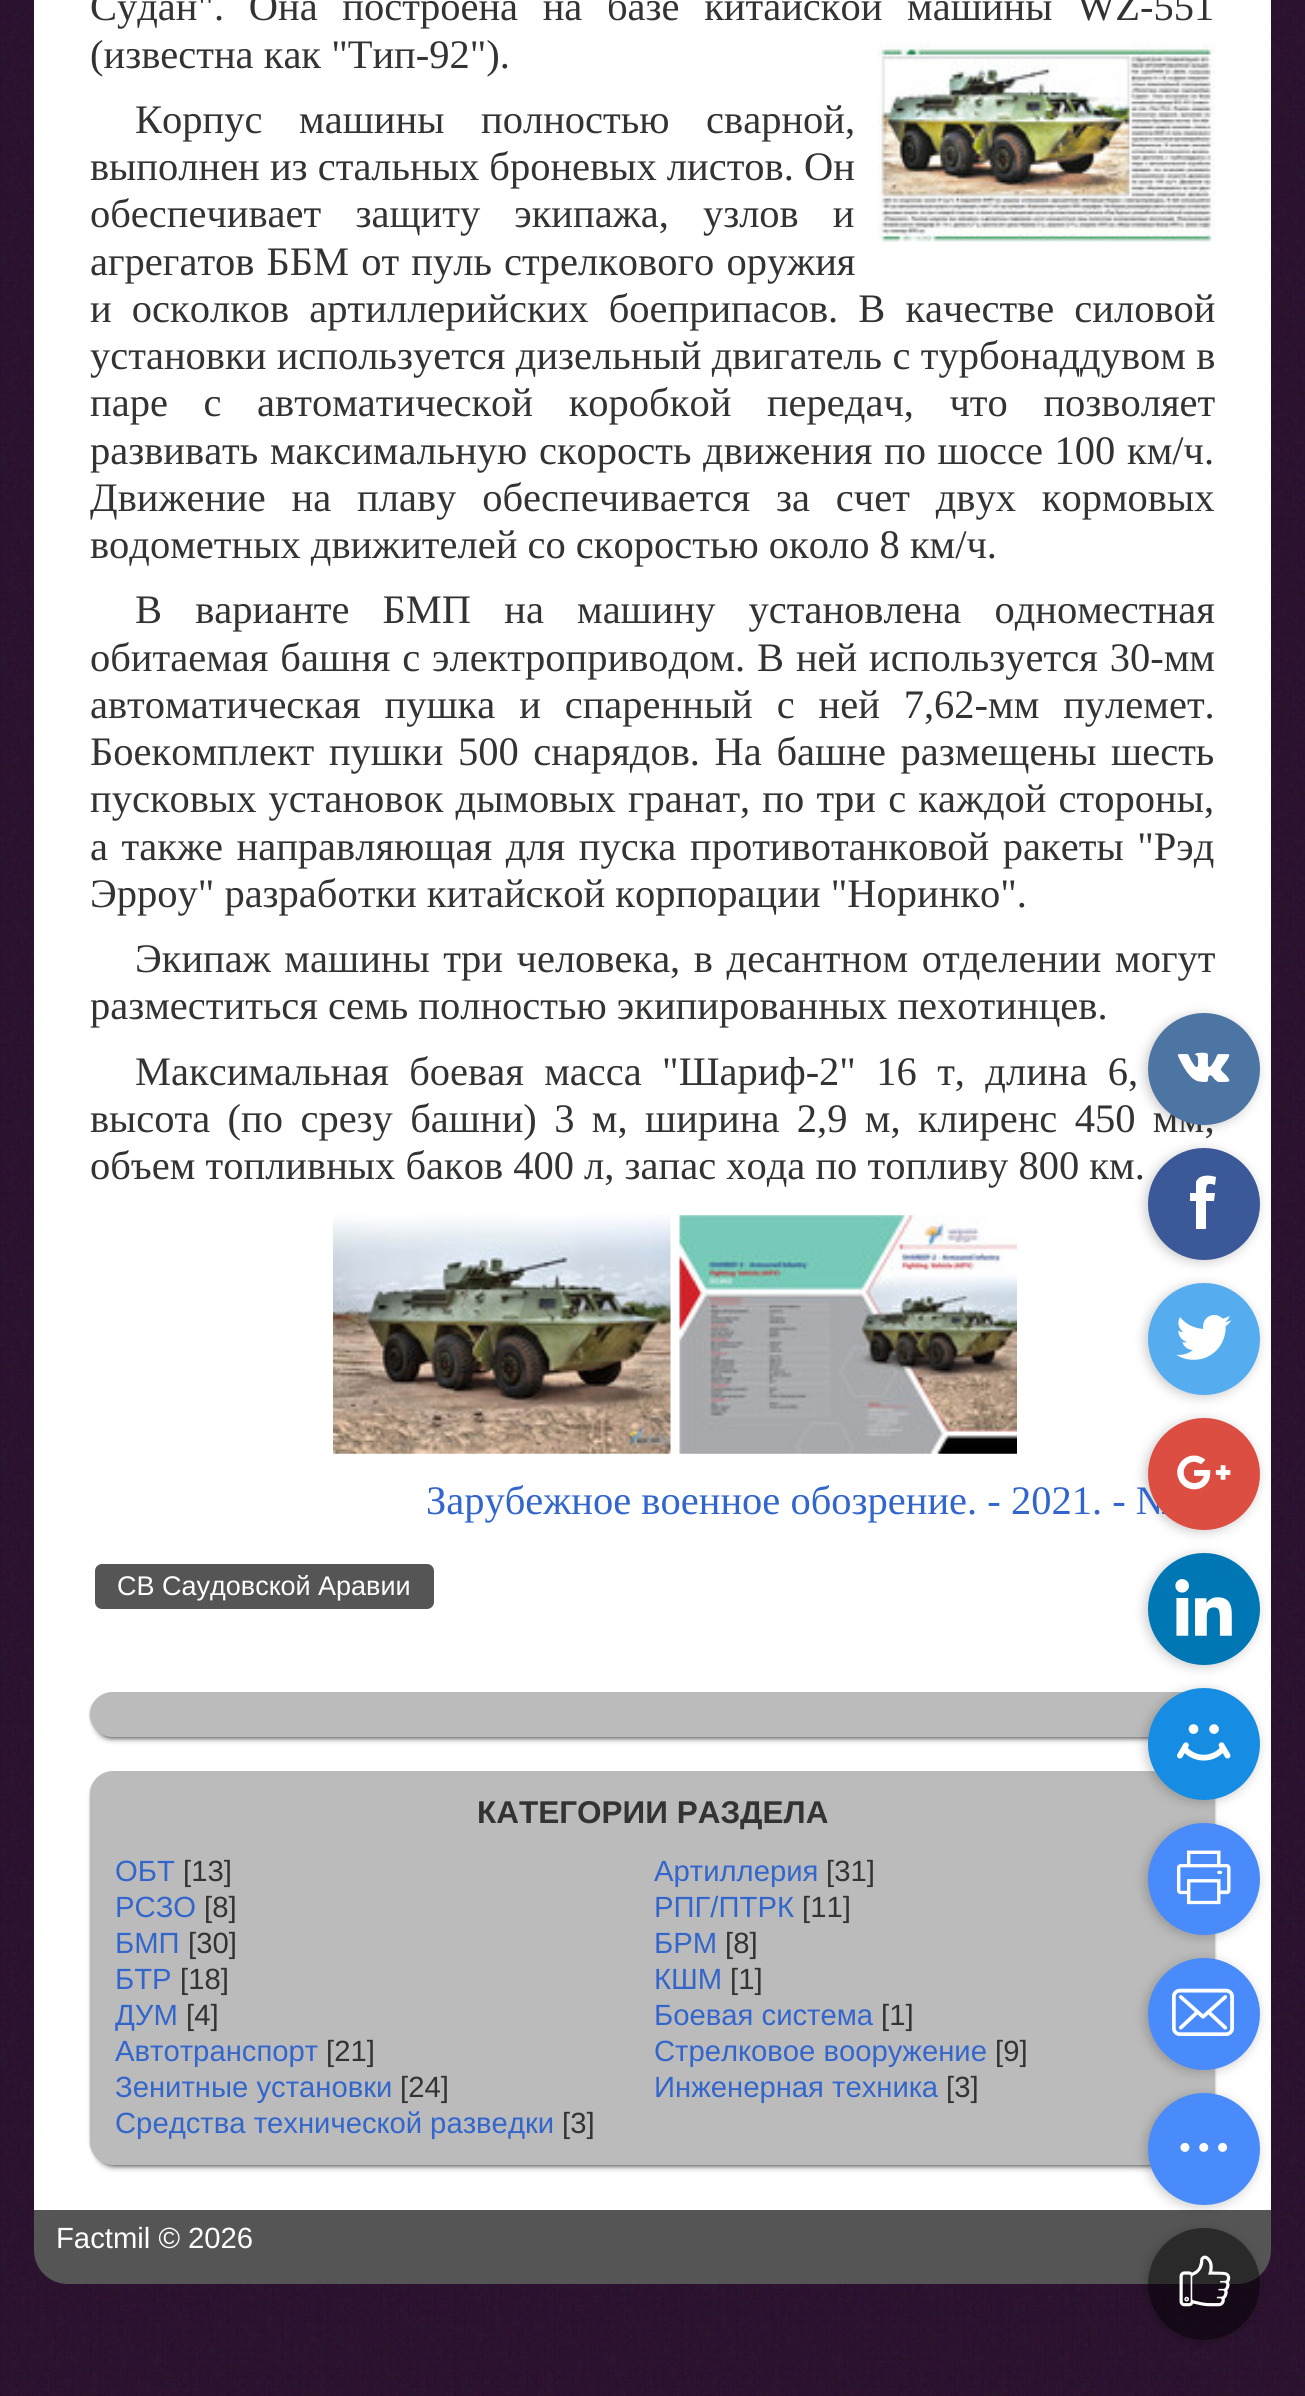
import math
import cairo

surface = cairo.ImageSurface(cairo.FORMAT_RGB24, 1305, 2396)
cr = cairo.Context(surface)
options = cairo.FontOptions()
options.set_hint_metrics(cairo.HINT_METRICS_OFF)
options.set_hint_style(cairo.HINT_STYLE_NONE)
cr.set_font_options(options)
cr.set_miter_limit(4)


def rgb(code):
    cr.set_source_rgb(*(v / 255 for v in bytes.fromhex(code[-6:])))


def tracked(x, y, s, letter, word):
    cr.move_to(x, y)
    for ch in s:
        cr.show_text(ch)
        cr.rel_move_to(letter + word * (ch == ' '), 0)


def rrect(x, y, w, h, r):
    cr.new_sub_path()
    for i, (u, v) in enumerate([(x + w - r, y + h - r), (x + r, y + h - r), (x + r, y + r), (x + w - r, y + r)]):
        cr.arc(u, v, r, i * math.pi / 2, (i + 1) * math.pi / 2)
    cr.close_path()


def soft_shadow(x, y, w, h, r, blur, alpha):
    cr.push_group_with_content(cairo.CONTENT_ALPHA)
    cr.set_operator(cairo.OPERATOR_SOURCE)
    for i in range(15, -16, -2):
        e = blur * i / 6
        if min(w, h) + 2 * e > 0:
            cr.set_source_rgba(0, 0, 0, alpha * math.erfc((i - 1) / 8.5) / 2)
            rrect(x - e, y - e, w + 2 * e, h + 2 * e, max(0, min(r + e + blur * .6, min(w, h) / 2 + e)))
            cr.fill()
    cr.mask(cr.pop_group())


def image(path, x, y, w, h):
    cr.save()
    cr.set_source_surface(cairo.ImageSurface.create_from_png(path), x, y)
    cr.rectangle(x, y, w, h)
    cr.fill()
    cr.restore()


rgb("#ffffff")
cr.paint()
image("img/1.png", 0, 0, 1305, 2396)
rgb("#ffffff")
cr.rectangle(34, 0, 1237, 2210)
cr.fill()
image("img/2.png", 877, 43, 338, 199)
image("img/3.png", 333, 1215, 338, 239)
image("img/4.png", 679, 1215, 338, 239)
rgb("#555555")
rrect(95, 1564, 339, 45, 7)
cr.fill()
rgb("#000000")
soft_shadow(92, 1699, 1112, 31, 15.5, 2, 1)
soft_shadow(97, 1706, 1111, 31, 15.5, 3.5, 1)
rgb("#bbbbbb")
rrect(90, 1692, 1125, 45, 22.5)
cr.fill()
rgb("#000000")
soft_shadow(101, 1778, 1112, 380, 16, 2, 1)
soft_shadow(92, 1778, 1112, 380, 16, 2, 1)
soft_shadow(97, 1784, 1111, 381, 16, 3.5, 1)
rgb("#bbbbbb")
rrect(90, 1771, 1125, 394, 23)
cr.fill()
rgb("#555555")
cr.new_path()
cr.move_to(34, 2210)
cr.line_to(1271, 2210)
cr.line_to(1271, 2250)
cr.curve_to(1271, 2269, 1256, 2284, 1237, 2284)
cr.line_to(68, 2284)
cr.curve_to(49, 2284, 34, 2269, 34, 2250)
cr.close_path()
cr.fill()
rgb("#000000")
soft_shadow(1145, 1015, 113, 112, 56, 5.5, 0.2)
soft_shadow(1145, 1150, 113, 112, 56, 5.5, 0.2)
rgb("#3b5998")
cr.arc(1204, 1204, 56, 0, 2 * math.pi)
cr.fill()
rgb("#ffffff")
cr.new_path()
cr.move_to(1190, 1193)
cr.line_to(1196, 1193)
cr.line_to(1196, 1182)
cr.curve_to(1199, 1174, 1210, 1175, 1216, 1177)
cr.line_to(1215, 1185)
cr.curve_to(1206, 1182, 1206, 1185, 1206, 1193)
cr.line_to(1215, 1193)
cr.line_to(1214, 1201)
cr.line_to(1206, 1201)
cr.line_to(1206, 1229)
cr.line_to(1196, 1229)
cr.line_to(1196, 1201)
cr.line_to(1190, 1201)
cr.close_path()
cr.fill()
rgb("#000000")
soft_shadow(1145, 1285, 113, 112, 56, 5.5, 0.2)
rgb("#55acee")
cr.arc(1204, 1339, 56, 0, 2 * math.pi)
cr.fill()
image("img/6.png", 1176, 1315, 56, 45)
rgb("#000000")
soft_shadow(1145, 1420, 113, 112, 56, 5.5, 0.2)
soft_shadow(1145, 1555, 113, 112, 56, 5.5, 0.2)
rgb("#0077b5")
cr.arc(1204, 1609, 56, 0, 2 * math.pi)
cr.fill()
image("img/8.png", 1175, 1579, 57, 57)
rgb("#000000")
soft_shadow(1145, 1690, 113, 112, 56, 5.5, 0.2)
rgb("#168de2")
cr.arc(1204, 1744, 56, 0, 2 * math.pi)
cr.fill()
image("img/9.png", 1177, 1724, 54, 37)
rgb("#000000")
soft_shadow(1145, 1825, 113, 112, 56, 5.5, 0.2)
rgb("#498bfa")
cr.arc(1204, 1879, 56, 0, 2 * math.pi)
cr.fill()
image("img/10.png", 1177, 1850, 54, 55)
rgb("#000000")
soft_shadow(1145, 1960, 113, 112, 56, 5.5, 0.2)
rgb("#498bfa")
cr.arc(1204, 2014, 56, 0, 2 * math.pi)
cr.fill()
image("img/11.png", 1172, 1988, 62, 48)
rgb("#000000")
soft_shadow(1145, 2095, 113, 112, 56, 5.5, 0.2)
rgb("#498bfa")
cr.arc(1204, 2149, 56, 0, 2 * math.pi)
cr.fill()
image("img/12.png", 1180, 2142, 48, 10)
cr.save()
cr.set_fill_rule(cairo.FILL_RULE_EVEN_ODD)
cr.new_path()
cr.move_to(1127, 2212)
cr.line_to(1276, 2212)
cr.line_to(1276, 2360)
cr.line_to(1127, 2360)
cr.close_path()
cr.move_to(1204, 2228)
cr.curve_to(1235, 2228, 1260, 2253, 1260, 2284)
cr.curve_to(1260, 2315, 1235, 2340, 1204, 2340)
cr.curve_to(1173, 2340, 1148, 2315, 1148, 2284)
cr.curve_to(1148, 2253, 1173, 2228, 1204, 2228)
cr.close_path()
cr.clip()
rgb("#000000")
soft_shadow(1145, 2230, 113, 112, 56, 5.5, 0.2)
cr.restore()
cr.set_source_rgba(0, 0, 0, 0.5)
cr.arc(1204, 2284, 56, 0, 2 * math.pi)
cr.fill()
image("img/13.png", 1179, 2255, 52, 52)
cr.select_font_face("Liberation Serif")
cr.set_font_size(40.5)
rgb("#333333")
tracked(90, 20, "Судан\". Она построена на базе китайской машины WZ-551", 0, 14.5)
cr.move_to(90, 68)
cr.show_text("(известна как \"Тип-92\").")
tracked(135, 133, "Корпус машины полностью сварной,", 0, 26.5)
cr.move_to(90, 180)
cr.show_text("выполнен из стальных броневых листов. Он")
tracked(90, 227, "обеспечивает защиту экипажа, узлов и", 0, 24)
tracked(90, 275, "агрегатов ББМ от пуль стрелкового оружия", 0, 2)
tracked(90, 322, "и осколков артиллерийских боеприпасов. В качестве силовой", 0, 10)
tracked(90, 369, "установки используется дизельный двигатель с турбонаддувом в", 0, 0.25)
tracked(90, 416, "паре с автоматической коробкой передач, что позволяет", 0, 25.5)
tracked(90, 464, "развивать максимальную скорость движения по шоссе 100 км/ч.", 0, 1.5)
tracked(90, 511, "Движение на плаву обеспечивается за счет двух кормовых", 0, 15.75)
cr.move_to(90, 558)
cr.show_text("водометных движителей со скоростью около 8 км/ч.")
tracked(135, 623, "В варианте БМП на машину установлена одноместная", 0, 23)
tracked(90, 671, "обитаемая башня с электроприводом. В ней используется 30-мм", 0, 1.75)
tracked(90, 718, "автоматическая пушка и спаренный с ней 7,62-мм пулемет.", 0, 13.75)
tracked(90, 765, "Боекомплект пушки 500 снарядов. На башне размещены шесть", 0, 4.5)
tracked(90, 812, "пусковых установок дымовых гранат, по три с каждой стороны,", 0, 2)
tracked(90, 860, "а также направляющая для пуска противотанковой ракеты \"Рэд", 0, 3.5)
cr.move_to(90, 907)
cr.show_text("Эрроу\" разработки китайской корпорации \"Норинко\".")
tracked(135, 972, "Экипаж машины три человека, в десантном отделении могут", 0, 3.5)
cr.move_to(90, 1019)
cr.show_text("разместиться семь полностью экипированных пехотинцев.")
tracked(135, 1085, "Максимальная боевая масса \"Шариф-2\" 16 т, длина 6,", 0, 10.25)
tracked(90, 1132, "высота (по срезу башни) 3 м, ширина 2,9 м, клиренс 450 мм;", 0, 7.25)
cr.move_to(90, 1179)
cr.show_text("объем топливных баков 400 л, запаc хода по топливу 800 км.")
rgb("#3366cc")
cr.move_to(426, 1514)
cr.show_text("Зарубежное военное обозрение. - 2021. - №")
cr.select_font_face("Liberation Sans")
cr.set_font_size(27)
rgb("#ffffff")
cr.move_to(117, 1595)
cr.show_text("СВ Саудовской Аравии")
cr.select_font_face("Liberation Sans", cairo.FONT_SLANT_NORMAL, cairo.FONT_WEIGHT_BOLD)
cr.set_font_size(31.5)
rgb("#333333")
cr.move_to(477, 1823)
cr.show_text("КАТЕГОРИИ РАЗДЕЛА")
cr.select_font_face("Liberation Sans")
cr.set_font_size(29.25)
rgb("#3366cc")
cr.move_to(115, 1881)
cr.show_text("ОБТ")
rgb("#333333")
cr.move_to(183, 1881)
cr.show_text("[13]")
rgb("#3366cc")
cr.move_to(654, 1881)
cr.show_text("Артиллерия")
rgb("#333333")
cr.move_to(826, 1881)
cr.show_text("[31]")
rgb("#3366cc")
cr.move_to(115, 1917)
cr.show_text("РСЗО")
rgb("#333333")
cr.move_to(204, 1917)
cr.show_text("[8]")
rgb("#3366cc")
cr.move_to(654, 1917)
cr.show_text("РПГ/ПТРК")
rgb("#333333")
cr.move_to(802, 1917)
cr.show_text("[11]")
rgb("#3366cc")
cr.move_to(115, 1953)
cr.show_text("БМП")
rgb("#333333")
cr.move_to(188, 1953)
cr.show_text("[30]")
rgb("#3366cc")
cr.move_to(654, 1953)
cr.show_text("БРМ")
rgb("#333333")
cr.move_to(725, 1953)
cr.show_text("[8]")
rgb("#3366cc")
cr.move_to(115, 1989)
cr.show_text("БТР")
rgb("#333333")
cr.move_to(180, 1989)
cr.show_text("[18]")
rgb("#3366cc")
cr.move_to(654, 1989)
cr.show_text("КШМ")
rgb("#333333")
cr.move_to(730, 1989)
cr.show_text("[1]")
rgb("#3366cc")
cr.move_to(115, 2025)
cr.show_text("ДУМ")
rgb("#333333")
cr.move_to(186, 2025)
cr.show_text("[4]")
rgb("#3366cc")
cr.move_to(654, 2025)
cr.show_text("Боевая система")
rgb("#333333")
cr.move_to(881, 2025)
cr.show_text("[1]")
rgb("#3366cc")
cr.move_to(115, 2061)
cr.show_text("Автотранспорт")
rgb("#333333")
cr.move_to(326, 2061)
cr.show_text("[21]")
rgb("#3366cc")
cr.move_to(654, 2061)
cr.show_text("Стрелковое вооружение")
rgb("#333333")
cr.move_to(995, 2061)
cr.show_text("[9]")
rgb("#3366cc")
cr.move_to(115, 2097)
cr.show_text("Зенитные установки")
rgb("#333333")
cr.move_to(400, 2097)
cr.show_text("[24]")
rgb("#3366cc")
cr.move_to(654, 2097)
cr.show_text("Инженерная техника")
rgb("#333333")
cr.move_to(946, 2097)
cr.show_text("[3]")
rgb("#3366cc")
cr.move_to(115, 2133)
cr.show_text("Средства технической разведки")
rgb("#333333")
cr.move_to(562, 2133)
cr.show_text("[3]")
rgb("#ffffff")
cr.move_to(56, 2248)
cr.show_text("Factmil © 2026")
rgb("#4d75a3")
cr.new_path()
cr.arc(1204, 1069, 56, 0, 2 * math.pi)
cr.fill()
image("img/5.png", 1177, 1052, 53, 30)
rgb("#dc4e41")
cr.arc(1204, 1474, 56, 0, 2 * math.pi)
cr.fill()
image("img/7.png", 1177, 1455, 54, 35)
surface.write_to_png("page.png")
